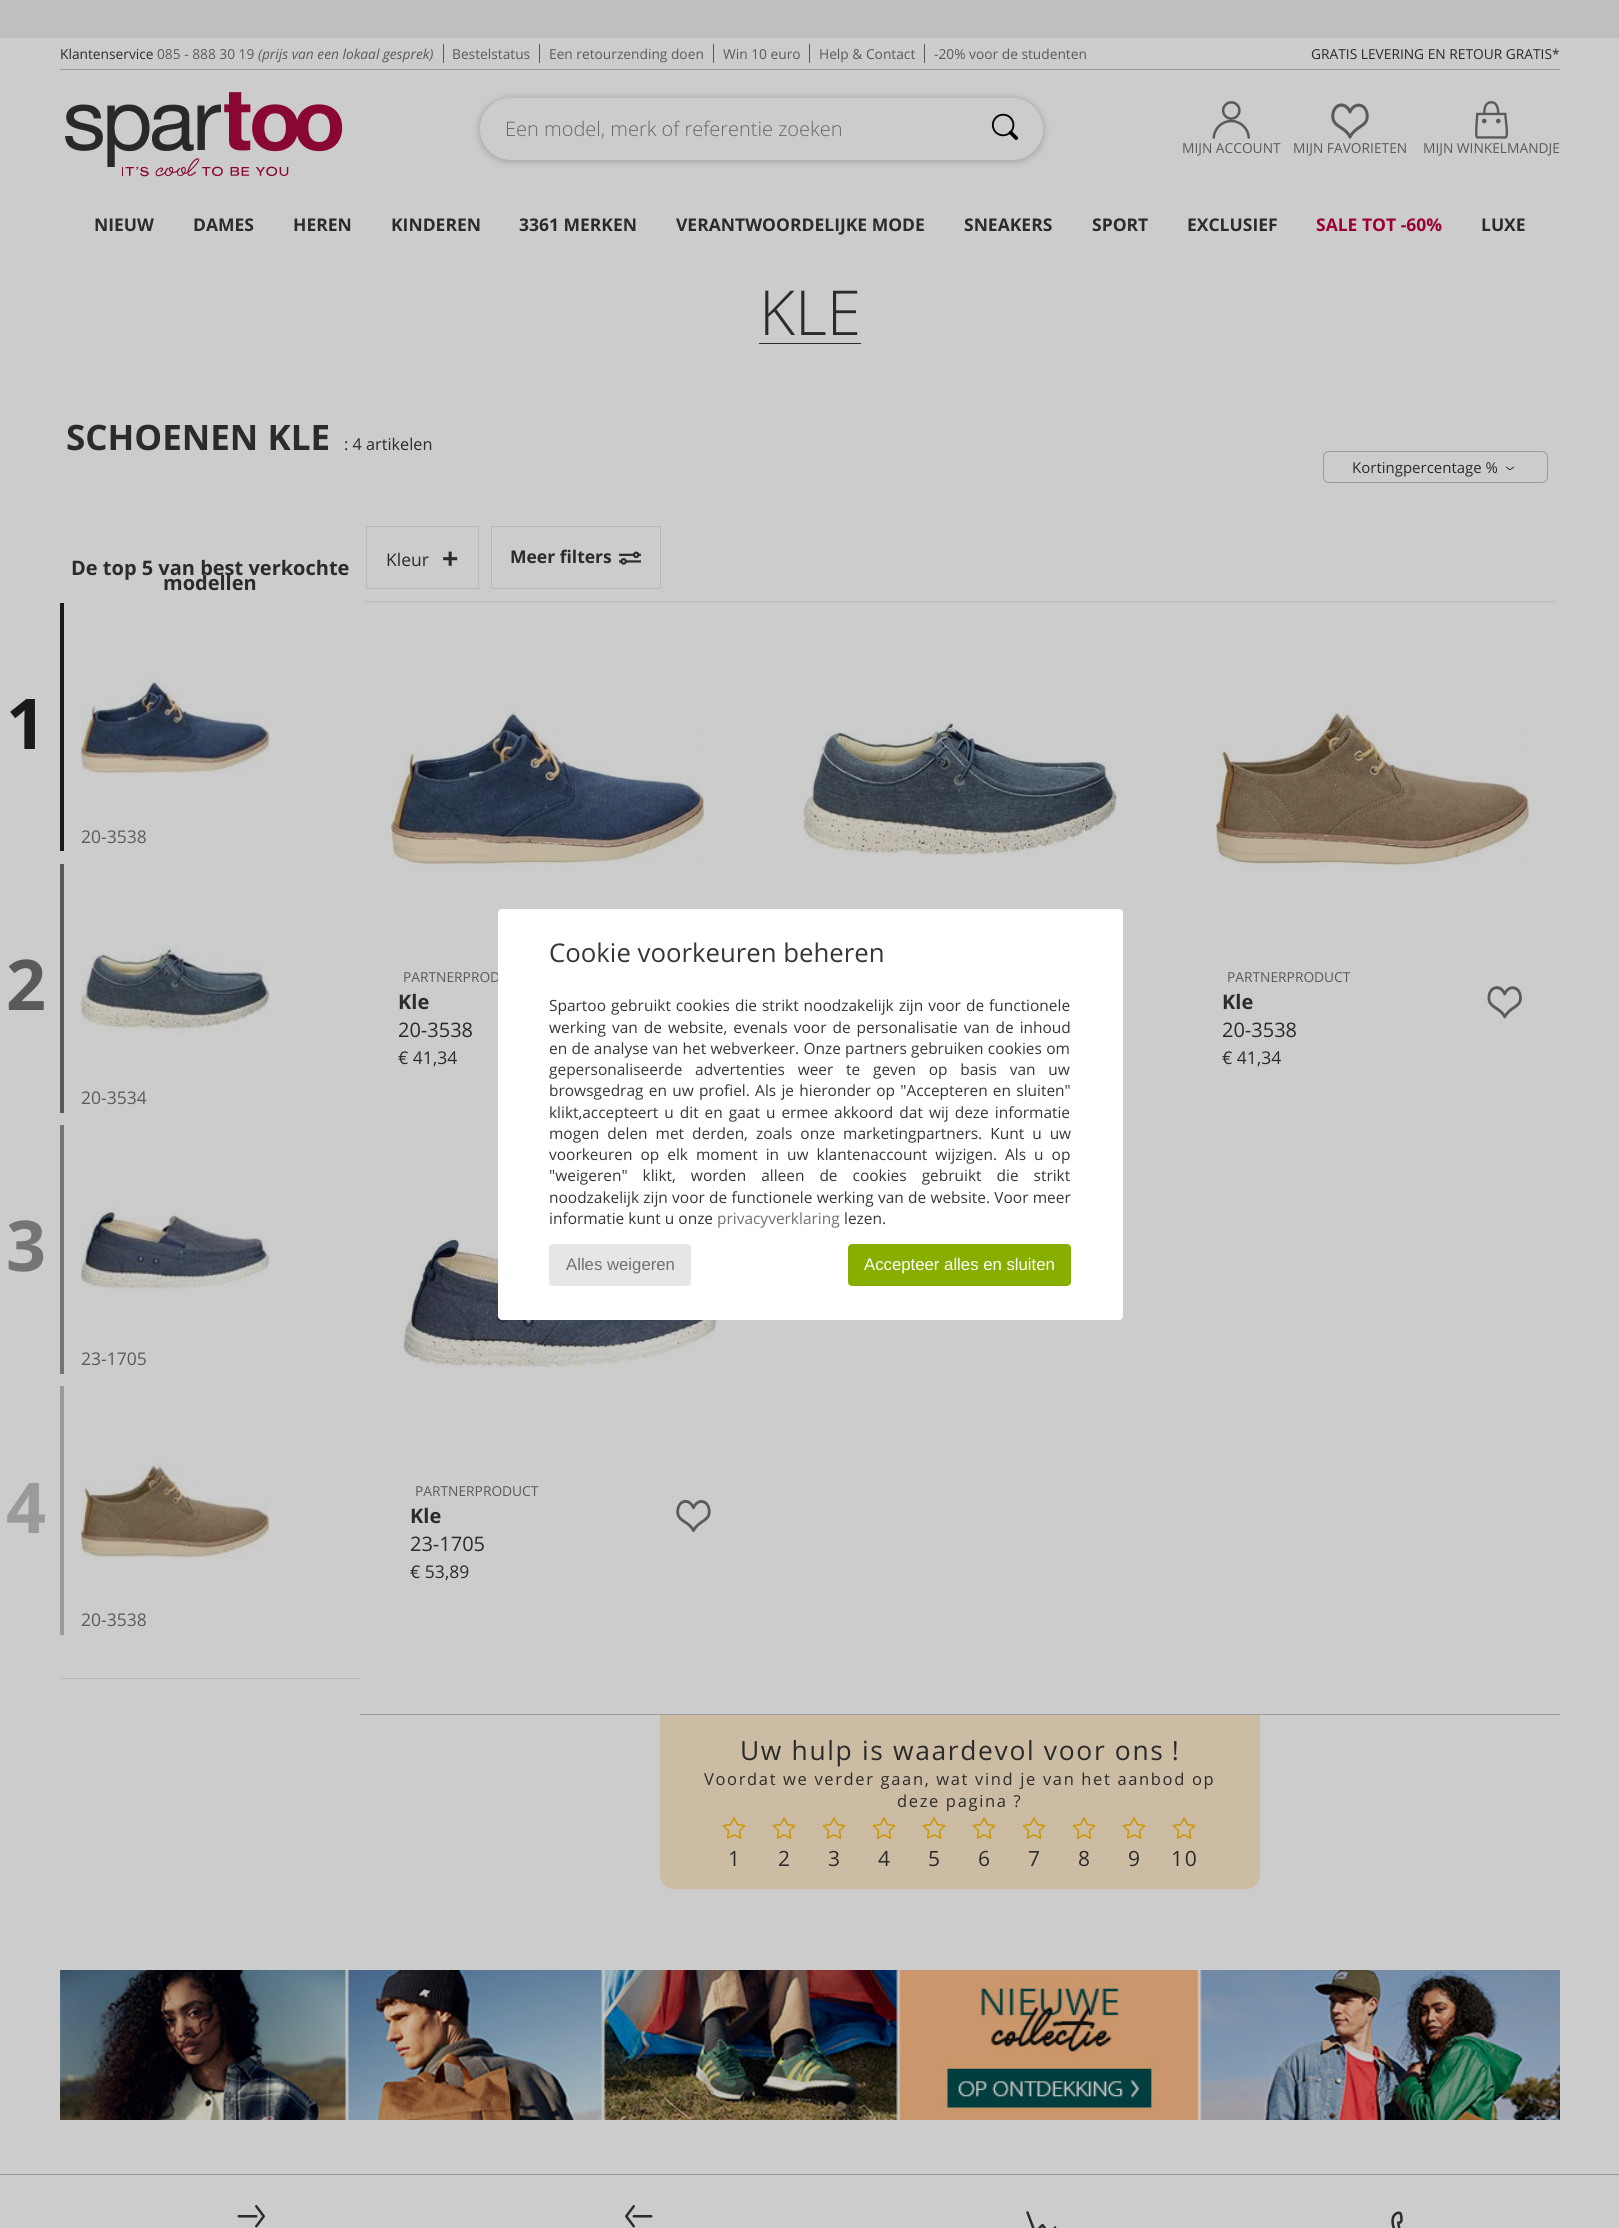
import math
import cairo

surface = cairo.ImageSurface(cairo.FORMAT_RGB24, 1619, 2228)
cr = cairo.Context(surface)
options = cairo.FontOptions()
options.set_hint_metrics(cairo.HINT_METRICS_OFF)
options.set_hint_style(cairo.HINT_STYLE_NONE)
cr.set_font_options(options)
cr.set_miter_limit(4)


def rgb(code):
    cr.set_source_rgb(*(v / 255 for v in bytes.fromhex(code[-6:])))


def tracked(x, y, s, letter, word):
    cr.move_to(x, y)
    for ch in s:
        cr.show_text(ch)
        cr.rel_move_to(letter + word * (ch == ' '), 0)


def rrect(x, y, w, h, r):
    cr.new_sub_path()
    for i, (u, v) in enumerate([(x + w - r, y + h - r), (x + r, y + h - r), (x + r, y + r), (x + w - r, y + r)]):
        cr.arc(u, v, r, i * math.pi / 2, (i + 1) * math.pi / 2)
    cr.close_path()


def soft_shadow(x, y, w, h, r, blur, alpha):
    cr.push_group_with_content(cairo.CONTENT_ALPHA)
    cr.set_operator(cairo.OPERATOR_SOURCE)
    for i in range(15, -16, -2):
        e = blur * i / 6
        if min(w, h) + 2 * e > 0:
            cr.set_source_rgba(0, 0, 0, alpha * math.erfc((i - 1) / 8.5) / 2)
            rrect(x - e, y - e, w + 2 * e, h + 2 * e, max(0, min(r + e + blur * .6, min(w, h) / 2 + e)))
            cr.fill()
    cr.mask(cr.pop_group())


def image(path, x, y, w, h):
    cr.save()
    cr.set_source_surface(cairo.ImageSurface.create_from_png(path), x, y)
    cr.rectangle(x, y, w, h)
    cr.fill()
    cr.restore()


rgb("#cccccc")
cr.paint()
for x, y, w, h, color in [
    (0, 0, 1619, 38, "#c0bebe"),
    (60, 69, 1500, 1, "#9a9a9a"),
    (443, 44, 1, 19, "#5a5a5a"),
    (539, 44, 1, 19, "#5a5a5a"),
    (713, 44, 1, 19, "#5a5a5a"),
    (809, 44, 1, 19, "#5a5a5a"),
    (924, 44, 1, 19, "#5a5a5a"),
]:
    rgb(color)
    cr.rectangle(x, y, w, h)
    cr.fill()
image("img/1.png", 65, 92, 278, 85)
rgb("#1a1a1d")
soft_shadow(480, 99, 563, 62, 31, 4, 0.28)
rgb("#cccccc")
rrect(480, 98, 563, 62, 31)
cr.fill()
image("img/2.png", 991, 113, 28, 27)
image("img/3.png", 1212, 101, 38, 38)
image("img/4.png", 1331, 103, 38, 36)
image("img/5.png", 1475, 101, 34, 38)
rgb("#2b2b2b")
cr.rectangle(759, 343, 102, 1)
cr.fill()
rrect(1323.5, 451.5, 224, 31, 5.5)
rgb("#9a9a9a")
cr.set_line_width(1)
cr.stroke()
image("img/6.png", 1505, 466, 10, 5)
rgb("#1a1a1a")
cr.rectangle(60, 603, 4, 248)
cr.fill()
image("img/7.png", 81, 674, 188, 101)
rgb("#5a5a5a")
cr.rectangle(60, 864, 4, 249)
cr.fill()
image("img/8.png", 81, 945, 188, 90)
rgb("#777474")
cr.rectangle(60, 1125, 4, 249)
cr.fill()
image("img/9.png", 81, 1206, 188, 86)
rgb("#9a9a9a")
cr.rectangle(60, 1386, 4, 249)
cr.fill()
image("img/10.png", 81, 1458, 188, 100)
rgb("#b8b8b8")
cr.rectangle(60, 1678, 300, 1)
cr.fill()
cr.save()
cr.rectangle(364, 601, 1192, 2)
cr.clip()
rgb("#000000")
soft_shadow(365, 529, 1190, 71, 0, 2.5, 0.25)
cr.restore()
cr.rectangle(366.5, 526.5, 112, 62)
cr.stroke()
cr.rectangle(491.5, 526.5, 169, 62)
cr.stroke()
image("img/11.png", 619, 551, 22, 14)
image("img/12.png", 803, 718, 314, 140)
image("img/13.png", 391, 708, 313, 164)
image("img/14.png", 1216, 704, 313, 171)
image("img/15.png", 1487, 986, 35, 33)
image("img/16.png", 403, 1236, 314, 132)
image("img/17.png", 676, 1499, 35, 34)
rgb("#9a9a9a")
cr.rectangle(360, 1714, 1200, 1)
cr.fill()
rgb("#ccbca3")
cr.new_path()
cr.move_to(660, 1715)
cr.line_to(1260, 1715)
cr.line_to(1260, 1876)
cr.curve_to(1260, 1883, 1254, 1889, 1247, 1889)
cr.line_to(673, 1889)
cr.curve_to(666, 1889, 660, 1883, 660, 1876)
cr.close_path()
cr.fill()
image("img/18.png", 722, 1817, 24, 22)
image("img/18.png", 772, 1817, 24, 22)
image("img/18.png", 822, 1817, 24, 22)
image("img/18.png", 872, 1817, 24, 22)
image("img/18.png", 922, 1817, 24, 22)
image("img/18.png", 972, 1817, 24, 22)
image("img/18.png", 1022, 1817, 24, 22)
image("img/18.png", 1072, 1817, 24, 22)
image("img/18.png", 1122, 1817, 24, 22)
image("img/18.png", 1172, 1817, 24, 22)
image("img/19.png", 60, 1970, 1500, 150)
rgb("#9a9a9a")
cr.rectangle(0, 2174, 1619, 1)
cr.fill()
image("img/20.png", 237, 2205, 28, 23)
image("img/21.png", 625, 2205, 28, 23)
image("img/22.png", 1026, 2211, 31, 17)
image("img/23.png", 1391, 2211, 12, 17)
cr.select_font_face("Open Sans")
cr.set_font_size(13.75)
rgb("#2b2b2b")
cr.move_to(60, 59)
cr.show_text("Klantenservice")
rgb("#5a5a5a")
cr.move_to(157, 59)
cr.show_text("085 - 888 30 19")
cr.select_font_face("Open Sans", cairo.FONT_SLANT_ITALIC)
cr.move_to(258, 59)
cr.show_text("(prijs van een lokaal gesprek)")
cr.select_font_face("Open Sans")
for x, y, s in [
    (452, 59, "Bestelstatus"),
    (549, 59, "Een retourzending doen"),
    (723, 59, "Win 10 euro"),
    (819, 59, "Help & Contact"),
    (934, 59, "-20% voor de studenten"),
]:
    cr.move_to(x, y)
    cr.show_text(s)
rgb("#2b2b2b")
cr.move_to(1311, 59)
cr.show_text("GRATIS LEVERING EN RETOUR GRATIS*")
cr.select_font_face("Open Sans Light")
cr.set_font_size(20)
rgb("#666666")
cr.move_to(505, 136)
cr.show_text("Een model, merk of referentie zoeken")
cr.select_font_face("Open Sans")
cr.set_font_size(13.75)
rgb("#5a5a5a")
for x, y, s in [
    (1182, 153, "MIJN ACCOUNT"),
    (1293, 153, "MIJN FAVORIETEN"),
    (1423, 153, "MIJN WINKELMANDJE"),
]:
    cr.move_to(x, y)
    cr.show_text(s)
cr.select_font_face("Open Sans", cairo.FONT_SLANT_NORMAL, cairo.FONT_WEIGHT_BOLD)
cr.set_font_size(17.5)
rgb("#2b2b2b")
for x, y, s in [
    (94, 231, "NIEUW"),
    (193, 231, "DAMES"),
    (293, 231, "HEREN"),
    (391, 231, "KINDEREN"),
    (519, 231, "3361 MERKEN"),
    (676, 231, "VERANTWOORDELIJKE MODE"),
    (964, 231, "SNEAKERS"),
    (1092, 231, "SPORT"),
    (1187, 231, "EXCLUSIEF"),
]:
    cr.move_to(x, y)
    cr.show_text(s)
rgb("#9c0033")
cr.move_to(1316, 231)
cr.show_text("SALE TOT -60%")
rgb("#2b2b2b")
cr.move_to(1481, 231)
cr.show_text("LUXE")
cr.select_font_face("Open Sans Light")
cr.set_font_size(62)
cr.move_to(759, 335)
cr.show_text("KLE")
cr.select_font_face("Open Sans", cairo.FONT_SLANT_NORMAL, cairo.FONT_WEIGHT_BOLD)
cr.set_font_size(35)
cr.move_to(66, 450)
cr.show_text("SCHOENEN KLE")
cr.select_font_face("Open Sans")
cr.set_font_size(16.25)
cr.move_to(344, 450)
cr.show_text(": 4 artikelen")
cr.set_font_size(15)
cr.move_to(1352, 473)
cr.show_text("Kortingpercentage %")
cr.select_font_face("Open Sans", cairo.FONT_SLANT_NORMAL, cairo.FONT_WEIGHT_BOLD)
cr.set_font_size(20)
cr.move_to(71, 575)
cr.show_text("De top 5 van best verkochte")
cr.move_to(163, 590)
cr.show_text("modellen")
cr.set_font_size(70)
rgb("#1a1a1a")
cr.move_to(6, 749)
cr.show_text("1")
cr.select_font_face("Open Sans")
cr.set_font_size(17.5)
rgb("#5a5a5a")
cr.move_to(81, 843)
cr.show_text("20-3538")
cr.select_font_face("Open Sans", cairo.FONT_SLANT_NORMAL, cairo.FONT_WEIGHT_BOLD)
cr.set_font_size(70)
cr.move_to(6, 1010)
cr.show_text("2")
cr.select_font_face("Open Sans")
cr.set_font_size(17.5)
cr.move_to(81, 1104)
cr.show_text("20-3534")
cr.select_font_face("Open Sans", cairo.FONT_SLANT_NORMAL, cairo.FONT_WEIGHT_BOLD)
cr.set_font_size(70)
rgb("#777474")
cr.move_to(6, 1271)
cr.show_text("3")
cr.select_font_face("Open Sans")
cr.set_font_size(17.5)
rgb("#5a5a5a")
cr.move_to(81, 1365)
cr.show_text("23-1705")
cr.select_font_face("Open Sans", cairo.FONT_SLANT_NORMAL, cairo.FONT_WEIGHT_BOLD)
cr.set_font_size(70)
rgb("#9a9a9a")
cr.move_to(6, 1533)
cr.show_text("4")
cr.select_font_face("Open Sans")
cr.set_font_size(17.5)
rgb("#5a5a5a")
cr.move_to(81, 1626)
cr.show_text("20-3538")
rgb("#2b2b2b")
cr.move_to(386, 566)
cr.show_text("Kleur")
cr.select_font_face("Liberation Sans", cairo.FONT_SLANT_NORMAL, cairo.FONT_WEIGHT_BOLD)
cr.set_font_size(28)
cr.move_to(442, 568)
cr.show_text("+")
cr.select_font_face("Open Sans", cairo.FONT_SLANT_NORMAL, cairo.FONT_WEIGHT_BOLD)
cr.set_font_size(17.5)
cr.move_to(510, 563)
cr.show_text("Meer filters")
cr.select_font_face("Open Sans")
cr.set_font_size(13.75)
rgb("#5a5a5a")
cr.move_to(403, 982)
cr.show_text("PARTNERPROD")
cr.select_font_face("Open Sans", cairo.FONT_SLANT_NORMAL, cairo.FONT_WEIGHT_BOLD)
cr.set_font_size(20)
rgb("#2b2b2b")
cr.move_to(398, 1009)
cr.show_text("Kle")
cr.select_font_face("Open Sans")
cr.move_to(398, 1037)
cr.show_text("20-3538")
cr.set_font_size(17.5)
cr.move_to(398, 1064)
cr.show_text("€ 41,34")
cr.set_font_size(13.75)
rgb("#5a5a5a")
cr.move_to(1227, 982)
cr.show_text("PARTNERPRODUCT")
cr.select_font_face("Open Sans", cairo.FONT_SLANT_NORMAL, cairo.FONT_WEIGHT_BOLD)
cr.set_font_size(20)
rgb("#2b2b2b")
cr.move_to(1222, 1009)
cr.show_text("Kle")
cr.select_font_face("Open Sans")
cr.move_to(1222, 1037)
cr.show_text("20-3538")
cr.set_font_size(17.5)
cr.move_to(1222, 1064)
cr.show_text("€ 41,34")
cr.set_font_size(13.75)
rgb("#5a5a5a")
cr.move_to(415, 1496)
cr.show_text("PARTNERPRODUCT")
cr.select_font_face("Open Sans", cairo.FONT_SLANT_NORMAL, cairo.FONT_WEIGHT_BOLD)
cr.set_font_size(20)
rgb("#2b2b2b")
cr.move_to(410, 1523)
cr.show_text("Kle")
cr.select_font_face("Open Sans")
cr.move_to(410, 1551)
cr.show_text("23-1705")
cr.set_font_size(17.5)
cr.move_to(410, 1578)
cr.show_text("€ 53,89")
cr.set_font_size(26.4)
tracked(740, 1760, "Uw hulp is waardevol voor ons !", 1.65, 0)
cr.set_font_size(16.5)
tracked(704, 1785, "Voordat we verder gaan, wat vind je van het aanbod op", 1.65, 0)
tracked(897, 1807, "deze pagina ?", 1.65, 0)
cr.set_font_size(21)
for x, y, s in [
    (728, 1866, "1"),
    (778, 1866, "2"),
    (828, 1866, "3"),
    (878, 1866, "4"),
    (928, 1866, "5"),
    (978, 1866, "6"),
    (1028, 1866, "7"),
    (1078, 1866, "8"),
    (1128, 1866, "9"),
    (1171, 1866, "10"),
]:
    tracked(x, y, s, 1.65, 0)
rgb("#ffffff")
rrect(498, 909, 625, 411, 4)
cr.fill()
cr.set_font_size(25.75)
rgb("#363636")
cr.move_to(549, 962)
cr.show_text("Cookie voorkeuren beheren")
cr.set_font_size(15.45)
tracked(549, 1011, "Spartoo gebruikt cookies die strikt noodzakelijk zijn voor de functionele", 0, 1)
tracked(549, 1033, "werking van de website, evenals voor de personalisatie van de inhoud", 0, 2)
tracked(549, 1054, "en de analyse van het webverkeer. Onze partners gebruiken cookies om", 0, 0.25)
tracked(549, 1075, "gepersonaliseerde advertenties weer te geven op basis van uw", 0, 8.75)
tracked(549, 1096, "browsgedrag en uw profiel. Als je hieronder op \"Accepteren en sluiten\"", 0, 1.25)
tracked(549, 1118, "klikt,accepteert u dit en gaat u ermee akkoord dat wij deze informatie", 0, 2)
tracked(549, 1139, "mogen delen met derden, zoals onze marketingpartners. Kunt u uw", 0, 4)
tracked(549, 1160, "voorkeuren op elk moment in uw klantenaccount wijzigen. Als u op", 0, 4)
tracked(549, 1181, "\"weigeren\" klikt, worden alleen de cookies gebruikt die strikt", 0, 11)
tracked(549, 1203, "noodzakelijk zijn voor de functionele werking van de website. Voor meer", 0, 0.25)
cr.move_to(549, 1224)
cr.show_text("informatie kunt u onze")
rgb("#707070")
cr.move_to(717, 1224)
cr.show_text("privacyverklaring")
rgb("#363636")
cr.move_to(844, 1224)
cr.show_text("lezen.")
rgb("#e6e6e6")
rrect(549, 1244, 142, 42, 4)
cr.fill()
cr.select_font_face("Liberation Sans")
cr.set_font_size(16.75)
rgb("#707070")
cr.move_to(566, 1270)
cr.show_text("Alles weigeren")
rgb("#88af00")
rrect(848, 1244, 223, 42, 4)
cr.fill()
rgb("#ffffff")
cr.move_to(864, 1270)
cr.show_text("Accepteer alles en sluiten")
surface.write_to_png("page.png")
